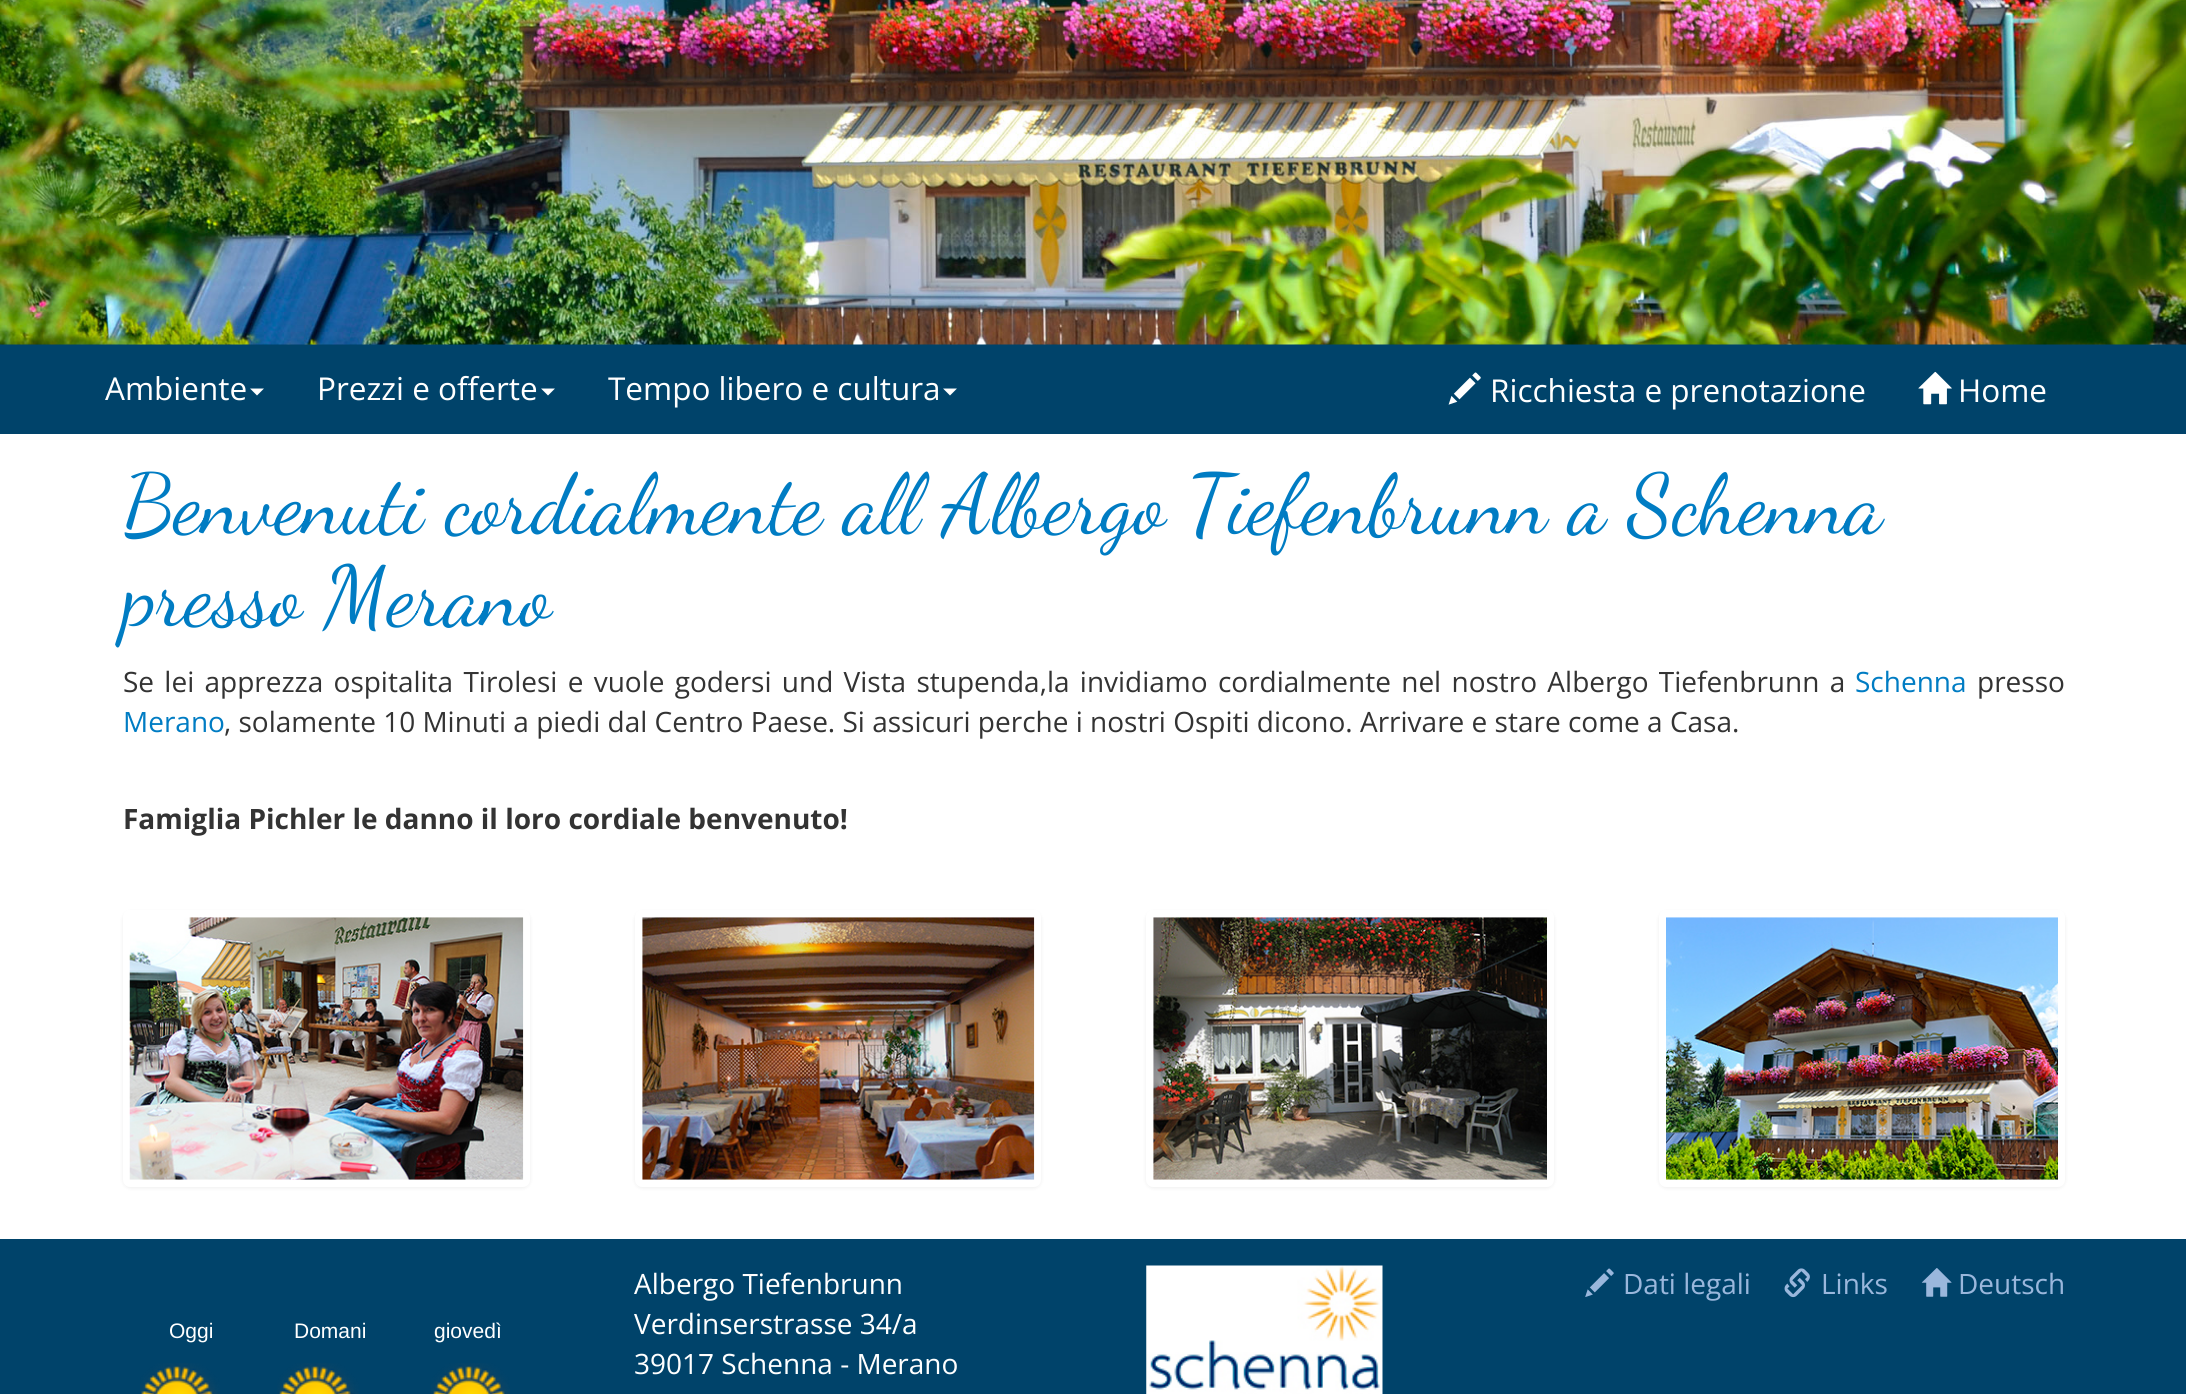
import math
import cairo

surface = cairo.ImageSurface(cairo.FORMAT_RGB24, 2186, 1394)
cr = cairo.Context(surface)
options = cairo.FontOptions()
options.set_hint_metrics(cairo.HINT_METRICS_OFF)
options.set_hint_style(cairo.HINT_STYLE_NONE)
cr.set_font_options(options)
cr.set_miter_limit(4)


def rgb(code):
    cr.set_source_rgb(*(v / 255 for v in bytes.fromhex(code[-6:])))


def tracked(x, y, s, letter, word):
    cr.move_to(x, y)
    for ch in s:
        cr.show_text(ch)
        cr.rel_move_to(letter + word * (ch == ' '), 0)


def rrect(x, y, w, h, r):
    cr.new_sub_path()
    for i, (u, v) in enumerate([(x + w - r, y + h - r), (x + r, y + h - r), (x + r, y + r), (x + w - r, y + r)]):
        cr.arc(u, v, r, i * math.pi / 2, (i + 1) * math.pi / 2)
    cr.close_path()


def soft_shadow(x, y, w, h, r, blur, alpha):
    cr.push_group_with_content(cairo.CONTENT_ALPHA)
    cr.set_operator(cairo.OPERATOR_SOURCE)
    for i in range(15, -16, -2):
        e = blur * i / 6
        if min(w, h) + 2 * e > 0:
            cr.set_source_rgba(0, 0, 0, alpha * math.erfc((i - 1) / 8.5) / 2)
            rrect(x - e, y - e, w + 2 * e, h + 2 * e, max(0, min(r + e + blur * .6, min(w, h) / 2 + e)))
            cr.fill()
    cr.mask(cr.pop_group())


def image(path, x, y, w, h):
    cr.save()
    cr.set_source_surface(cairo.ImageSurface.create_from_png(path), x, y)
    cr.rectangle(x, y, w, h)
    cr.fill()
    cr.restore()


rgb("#00436a")
cr.paint()
image("img/1.png", 0, 0, 2186, 345)
rgb("#ffffff")
cr.new_path()
cr.move_to(250, 388.5)
cr.line_to(264, 388.5)
cr.line_to(257, 395.5)
cr.close_path()
cr.fill()
cr.new_path()
cr.move_to(541, 388.5)
cr.line_to(555, 388.5)
cr.line_to(548, 395.5)
cr.close_path()
cr.fill()
cr.new_path()
cr.move_to(943, 388.5)
cr.line_to(957, 388.5)
cr.line_to(950, 395.5)
cr.close_path()
cr.fill()
image("img/2.png", 1448, 372, 33, 33)
image("img/3.png", 1918, 371, 34, 34)
cr.rectangle(0, 434, 2186, 805)
cr.fill()
rgb("#000000")
soft_shadow(123, 912, 407, 276, 7, 2, 0.07)
rgb("#ffffff")
rrect(123, 910, 407, 277, 7)
cr.fill()
image("img/4.png", 129, 917, 395, 263)
rgb("#000000")
soft_shadow(635, 912, 406, 276, 7, 2, 0.07)
rgb("#ffffff")
rrect(635, 910, 406, 277, 7)
cr.fill()
image("img/5.png", 642, 917, 393, 263)
rgb("#000000")
soft_shadow(1146, 912, 408, 276, 7, 2, 0.07)
rgb("#ffffff")
rrect(1146, 910, 408, 277, 7)
cr.fill()
image("img/6.png", 1153, 917, 394, 263)
rgb("#000000")
soft_shadow(1659, 912, 406, 276, 7, 2, 0.07)
rgb("#ffffff")
rrect(1659, 910, 406, 277, 7)
cr.fill()
image("img/7.png", 1666, 917, 392, 263)
image("img/8.png", 1146, 1265, 237, 129)
image("img/9.png", 1585, 1268, 29, 29)
image("img/10.png", 1784, 1268, 26, 30)
image("img/11.png", 1921, 1268, 31, 29)
image("img/12.png", 140, 1363, 80, 31)
image("img/13.png", 277, 1363, 82, 31)
image("img/14.png", 431, 1363, 79, 31)
cr.select_font_face("Open Sans")
cr.set_font_size(31.5)
for x, y, s in [
    (105, 400, "Ambiente"),
    (317, 400, "Prezzi e offerte"),
    (608, 400, "Tempo libero e cultura"),
    (1490, 402, "Ricchiesta e prenotazione"),
    (1958, 402, "Home"),
]:
    cr.move_to(x, y)
    cr.show_text(s)
cr.select_font_face("Dancing Script")
cr.set_font_size(84)
rgb("#007cc3")
cr.move_to(123, 532)
cr.show_text("Benvenuti cordialmente all Albergo Tiefenbrunn a Schenna")
cr.move_to(123, 624)
cr.show_text("presso Merano")
cr.select_font_face("Open Sans")
cr.set_font_size(28)
rgb("#333333")
tracked(123, 692, "Se lei apprezza ospitalita Tirolesi e vuole godersi und Vista stupenda,la invidiamo cordialmente nel nostro Albergo Tiefenbrunn a", 0, 3)
rgb("#007cc3")
cr.move_to(1855, 692)
cr.show_text("Schenna")
rgb("#333333")
cr.move_to(1977, 692)
cr.show_text("presso")
rgb("#007cc3")
cr.move_to(123, 732)
cr.show_text("Merano")
rgb("#333333")
cr.move_to(224, 732)
cr.show_text(", solamente 10 Minuti a piedi dal Centro Paese. Si assicuri perche i nostri Ospiti dicono. Arrivare e stare come a Casa.")
cr.select_font_face("Open Sans", cairo.FONT_SLANT_NORMAL, cairo.FONT_WEIGHT_BOLD)
cr.move_to(123, 829)
cr.show_text("Famiglia Pichler le danno il loro cordiale benvenuto!")
cr.select_font_face("Open Sans")
rgb("#ffffff")
for x, y, s in [
    (634, 1294, "Albergo Tiefenbrunn"),
    (634, 1334, "Verdinserstrasse 34/a"),
    (634, 1374, "39017 Schenna - Merano"),
]:
    cr.move_to(x, y)
    cr.show_text(s)
rgb("#9ab7dc")
for x, y, s in [
    (1623, 1294, "Dati legali"),
    (1821, 1294, "Links"),
    (1958, 1294, "Deutsch"),
]:
    cr.move_to(x, y)
    cr.show_text(s)
cr.select_font_face("Liberation Sans")
cr.set_font_size(21)
rgb("#ffffff")
for x, y, s in [
    (169, 1338, "Oggi"),
    (294, 1338, "Domani"),
    (434, 1338, "giovedì"),
]:
    cr.move_to(x, y)
    cr.show_text(s)
surface.write_to_png("page.png")
